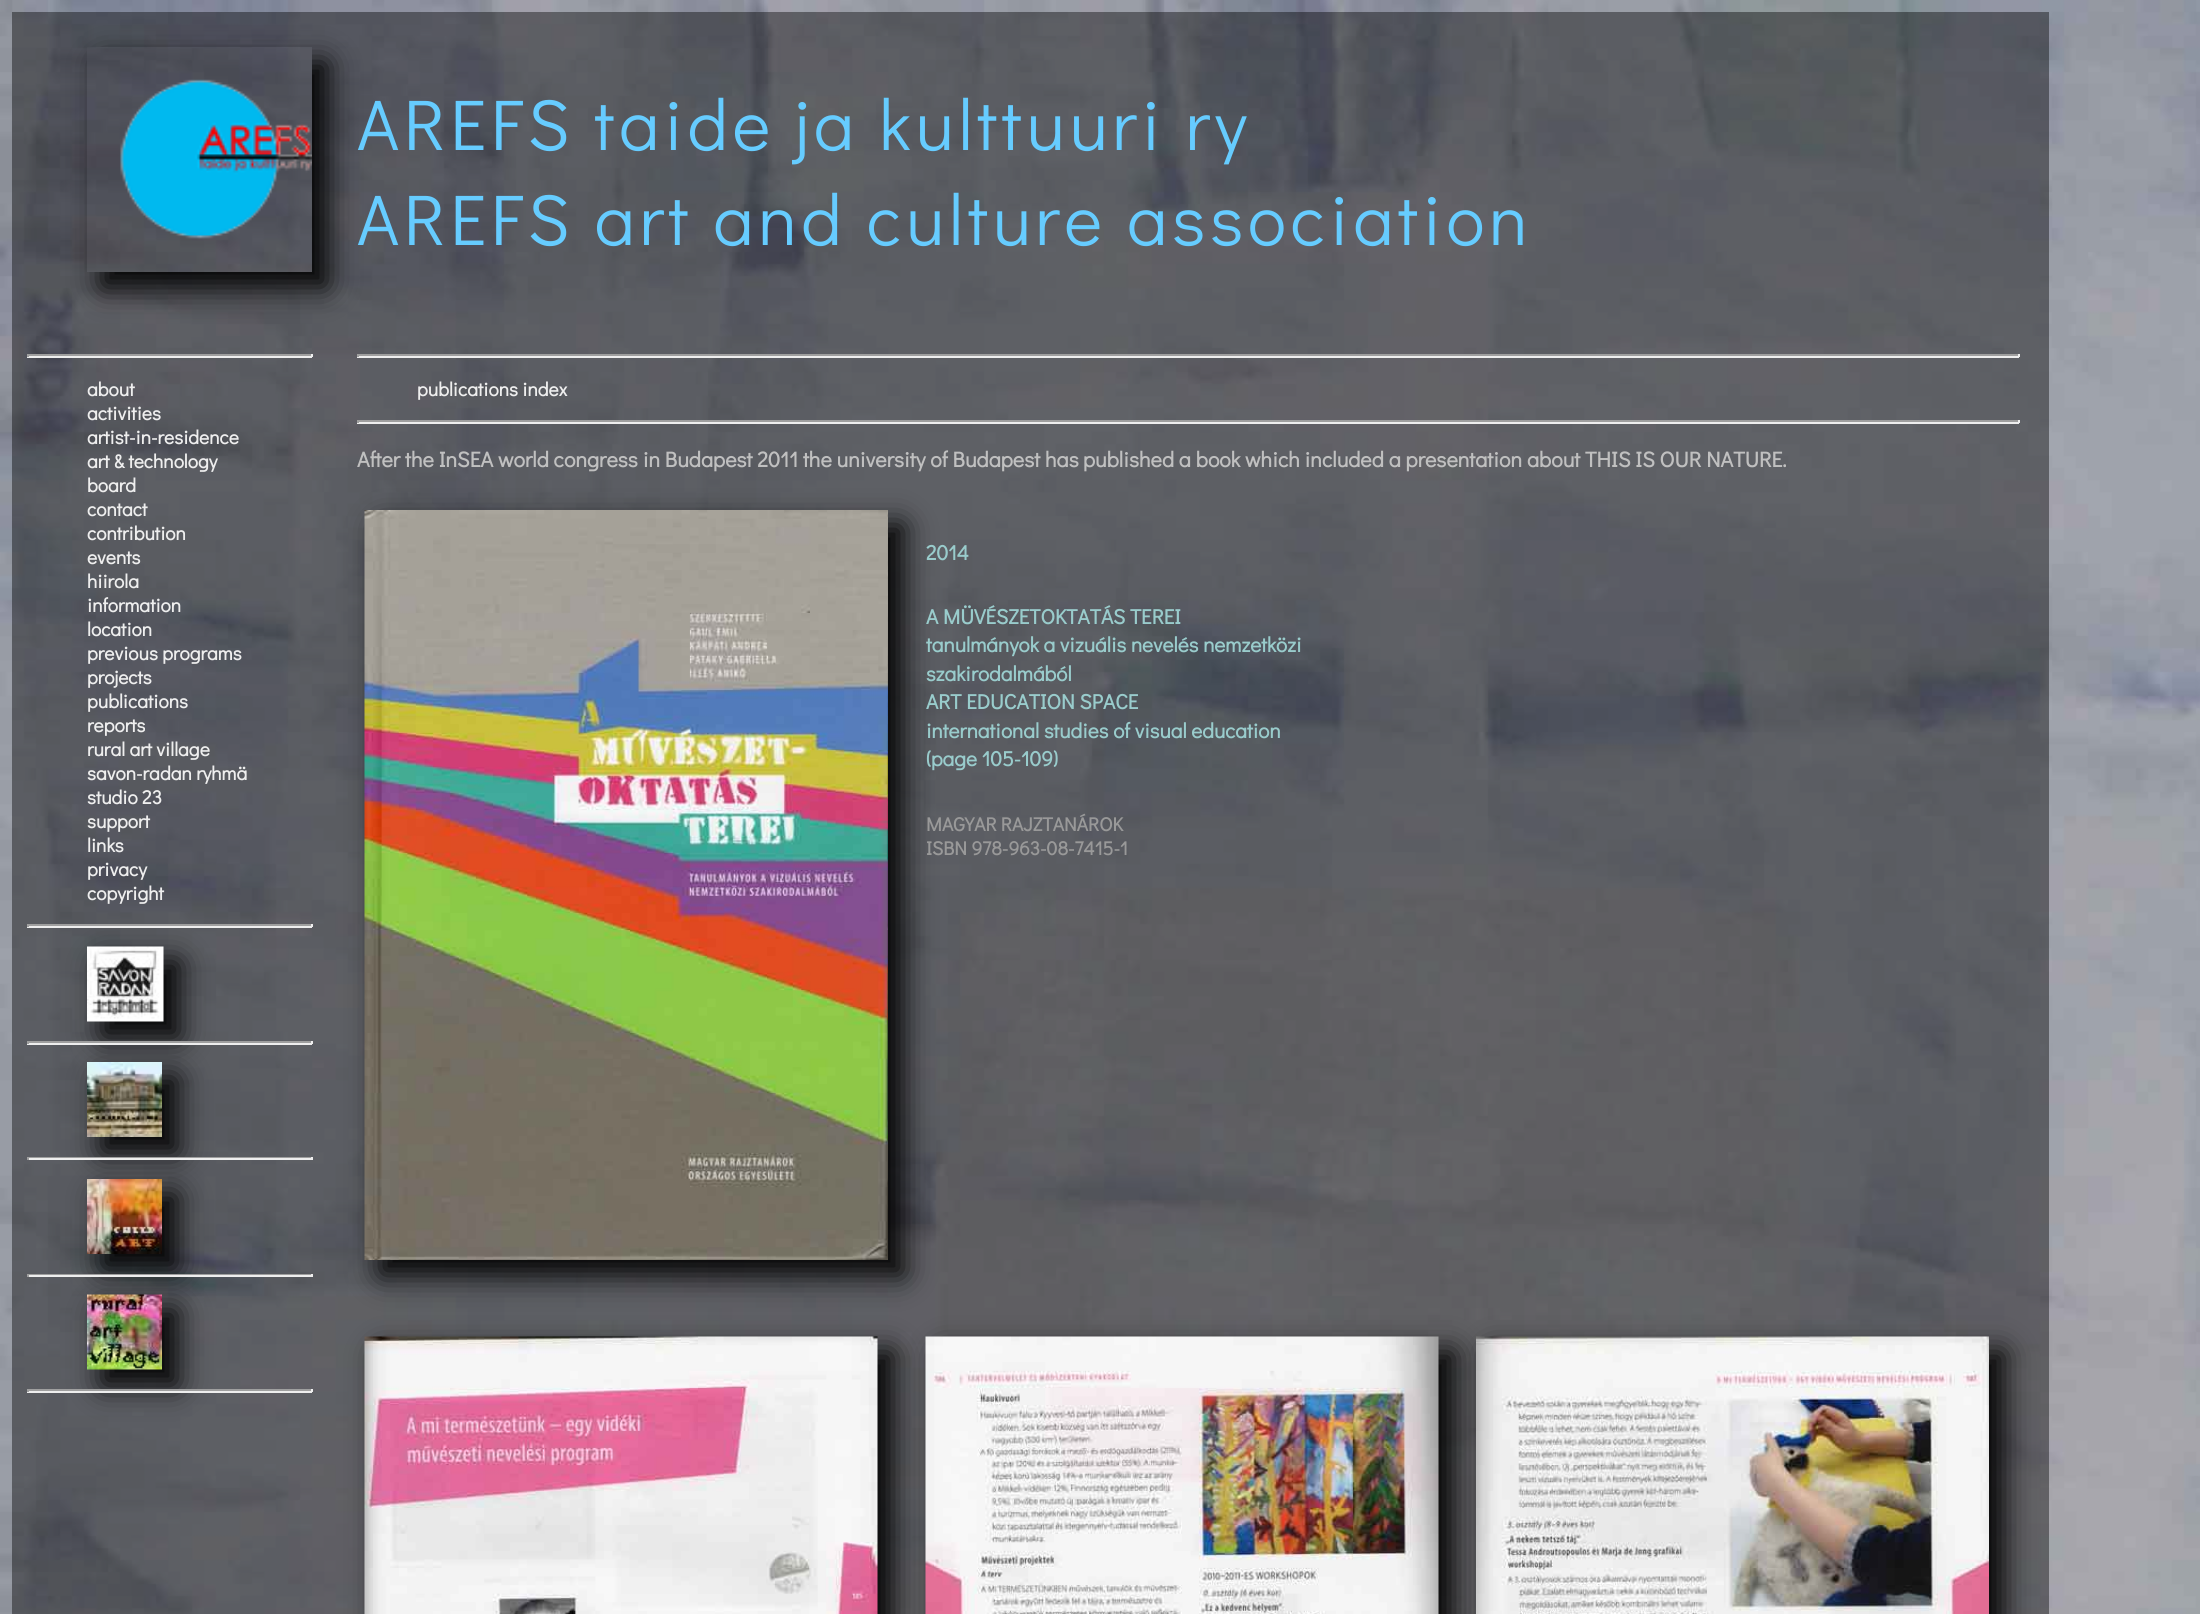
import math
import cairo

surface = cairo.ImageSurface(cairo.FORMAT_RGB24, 2200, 1614)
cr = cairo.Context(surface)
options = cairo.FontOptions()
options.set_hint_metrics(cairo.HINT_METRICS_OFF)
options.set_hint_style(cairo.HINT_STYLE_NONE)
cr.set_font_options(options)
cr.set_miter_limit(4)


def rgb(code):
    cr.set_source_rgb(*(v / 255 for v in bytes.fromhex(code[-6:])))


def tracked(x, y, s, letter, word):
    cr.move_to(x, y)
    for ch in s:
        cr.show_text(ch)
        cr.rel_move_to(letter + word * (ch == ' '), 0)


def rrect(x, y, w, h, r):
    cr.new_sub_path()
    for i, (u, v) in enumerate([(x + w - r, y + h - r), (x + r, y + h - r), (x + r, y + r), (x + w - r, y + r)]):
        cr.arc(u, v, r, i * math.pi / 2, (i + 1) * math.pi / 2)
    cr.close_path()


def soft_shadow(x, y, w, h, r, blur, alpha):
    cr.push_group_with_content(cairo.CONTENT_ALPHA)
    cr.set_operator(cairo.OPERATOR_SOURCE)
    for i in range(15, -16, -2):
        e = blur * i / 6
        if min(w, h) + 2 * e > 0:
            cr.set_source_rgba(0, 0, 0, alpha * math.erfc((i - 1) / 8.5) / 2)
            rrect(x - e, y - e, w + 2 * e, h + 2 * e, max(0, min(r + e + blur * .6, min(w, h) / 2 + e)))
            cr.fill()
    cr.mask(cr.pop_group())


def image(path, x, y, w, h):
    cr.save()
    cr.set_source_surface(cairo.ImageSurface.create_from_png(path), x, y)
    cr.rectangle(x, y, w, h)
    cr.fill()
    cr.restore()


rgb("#ffffff")
cr.paint()
image("img/1.png", 0, 0, 2200, 1614)
cr.save()
cr.set_fill_rule(cairo.FILL_RULE_EVEN_ODD)
cr.new_path()
cr.move_to(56, 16)
cr.line_to(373, 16)
cr.line_to(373, 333)
cr.line_to(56, 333)
cr.close_path()
cr.move_to(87, 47)
cr.line_to(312, 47)
cr.line_to(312, 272)
cr.line_to(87, 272)
cr.close_path()
cr.clip()
rgb("#000000")
soft_shadow(102, 62, 225, 225, 0, 15, 1)
cr.restore()
image("img/2.png", 120, 79, 192, 160)
for x, y, w, h, color in [
    (27, 354, 285, 2, "#9f9f9f"),
    (311, 354, 2, 3, "#eeeeee"),
    (27, 356, 285, 2, "#eeeeee"),
    (27, 354, 2, 3, "#9f9f9f"),
]:
    rgb(color)
    cr.rectangle(x, y, w, h)
    cr.fill()
rgb("#000000")
soft_shadow(102, 962, 77, 75, 0, 15, 1)
image("img/3.png", 87, 946, 77, 76)
for x, y, w, h, color in [
    (27, 924, 285, 2, "#9f9f9f"),
    (311, 924, 2, 3, "#eeeeee"),
    (27, 926, 285, 2, "#eeeeee"),
    (27, 924, 2, 3, "#9f9f9f"),
]:
    rgb(color)
    cr.rectangle(x, y, w, h)
    cr.fill()
rgb("#000000")
soft_shadow(102, 1077, 75, 75, 0, 15, 1)
image("img/4.png", 87, 1062, 75, 75)
for x, y, w, h, color in [
    (27, 1041, 285, 2, "#9f9f9f"),
    (311, 1041, 2, 3, "#eeeeee"),
    (27, 1043, 285, 2, "#eeeeee"),
    (27, 1041, 2, 3, "#9f9f9f"),
]:
    rgb(color)
    cr.rectangle(x, y, w, h)
    cr.fill()
rgb("#000000")
soft_shadow(102, 1194, 75, 75, 0, 15, 1)
image("img/5.png", 87, 1179, 75, 75)
for x, y, w, h, color in [
    (27, 1157, 285, 1, "#9f9f9f"),
    (311, 1157, 2, 3, "#eeeeee"),
    (27, 1158, 285, 2, "#eeeeee"),
    (27, 1157, 2, 3, "#9f9f9f"),
]:
    rgb(color)
    cr.rectangle(x, y, w, h)
    cr.fill()
rgb("#000000")
soft_shadow(102, 1310, 75, 75, 0, 15, 1)
image("img/6.png", 87, 1294, 75, 76)
for x, y, w, h, color in [
    (27, 1274, 285, 1, "#9f9f9f"),
    (311, 1274, 2, 3, "#eeeeee"),
    (27, 1275, 285, 2, "#eeeeee"),
    (27, 1274, 2, 3, "#9f9f9f"),
    (27, 1389, 285, 2, "#9f9f9f"),
    (311, 1389, 2, 3, "#eeeeee"),
    (27, 1391, 285, 2, "#eeeeee"),
    (27, 1389, 2, 3, "#9f9f9f"),
    (357, 354, 1662, 2, "#9f9f9f"),
    (2018, 354, 2, 3, "#eeeeee"),
    (357, 356, 1662, 2, "#eeeeee"),
    (357, 354, 2, 3, "#9f9f9f"),
    (357, 420, 1662, 2, "#9f9f9f"),
    (2018, 420, 2, 3, "#eeeeee"),
    (357, 422, 1662, 2, "#eeeeee"),
    (357, 420, 2, 3, "#9f9f9f"),
]:
    rgb(color)
    cr.rectangle(x, y, w, h)
    cr.fill()
rgb("#000000")
soft_shadow(380, 525, 523, 750, 0, 15, 1)
image("img/7.png", 364, 510, 524, 750)
soft_shadow(380, 1352, 513, 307, 0, 15, 1)
image("img/8.png", 364, 1336, 514, 278)
soft_shadow(941, 1352, 513, 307, 0, 15, 1)
image("img/9.png", 925, 1336, 514, 278)
soft_shadow(1491, 1352, 513, 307, 0, 15, 1)
image("img/10.png", 1476, 1336, 513, 278)
cr.select_font_face("Didact Gothic")
cr.set_font_size(72)
rgb("#66ccff")
tracked(357, 150, "AREFS taide ja kulttuuri ry", 4.5, 0)
tracked(357, 245, "AREFS art and culture association", 4.5, 0)
cr.select_font_face("Didact Gothic", cairo.FONT_SLANT_NORMAL, cairo.FONT_WEIGHT_BOLD)
cr.set_font_size(19.25)
rgb("#eeeeee")
for x, y, s in [
    (87, 396, "about"),
    (87, 420, "activities"),
    (87, 444, "artist-in-residence"),
    (87, 468, "art & technology"),
    (87, 492, "board"),
    (87, 516, "contact"),
    (87, 540, "contribution"),
    (87, 564, "events"),
    (87, 588, "hiirola"),
    (87, 612, "information"),
    (87, 636, "location"),
    (87, 660, "previous programs"),
    (87, 684, "projects"),
    (87, 708, "publications"),
    (87, 732, "reports"),
    (87, 756, "rural art village"),
    (87, 780, "savon-radan ryhmä"),
    (87, 804, "studio 23"),
    (87, 828, "support"),
    (87, 852, "links"),
    (87, 876, "privacy"),
    (87, 900, "copyright"),
    (417, 396, "publications index"),
]:
    cr.move_to(x, y)
    cr.show_text(s)
cr.set_font_size(21.6)
rgb("#c0c0c0")
cr.move_to(357, 467)
cr.show_text("After the InSEA world congress in Budapest 2011 the university of Budapest has")
cr.move_to(1083, 467)
cr.show_text("published a book which included a presentation about THIS IS OUR NATURE.")
cr.set_font_size(20.9)
rgb("#99cccc")
for x, y, s in [
    (926, 560, "2014"),
    (926, 624, "A MÜVÉSZETOKTATÁS TEREI"),
    (926, 652, "tanulmányok a vizuális nevelés nemzetközi"),
    (926, 681, "szakirodalmából"),
    (926, 709, "ART EDUCATION SPACE"),
    (926, 738, "international studies of visual education"),
    (926, 766, "(page 105-109)"),
]:
    cr.move_to(x, y)
    cr.show_text(s)
cr.set_font_size(19.25)
rgb("#999999")
cr.move_to(926, 831)
cr.show_text("MAGYAR RAJZTANÁROK")
cr.move_to(926, 855)
cr.show_text("ISBN 978-963-08-7415-1")
surface.write_to_png("page.png")
